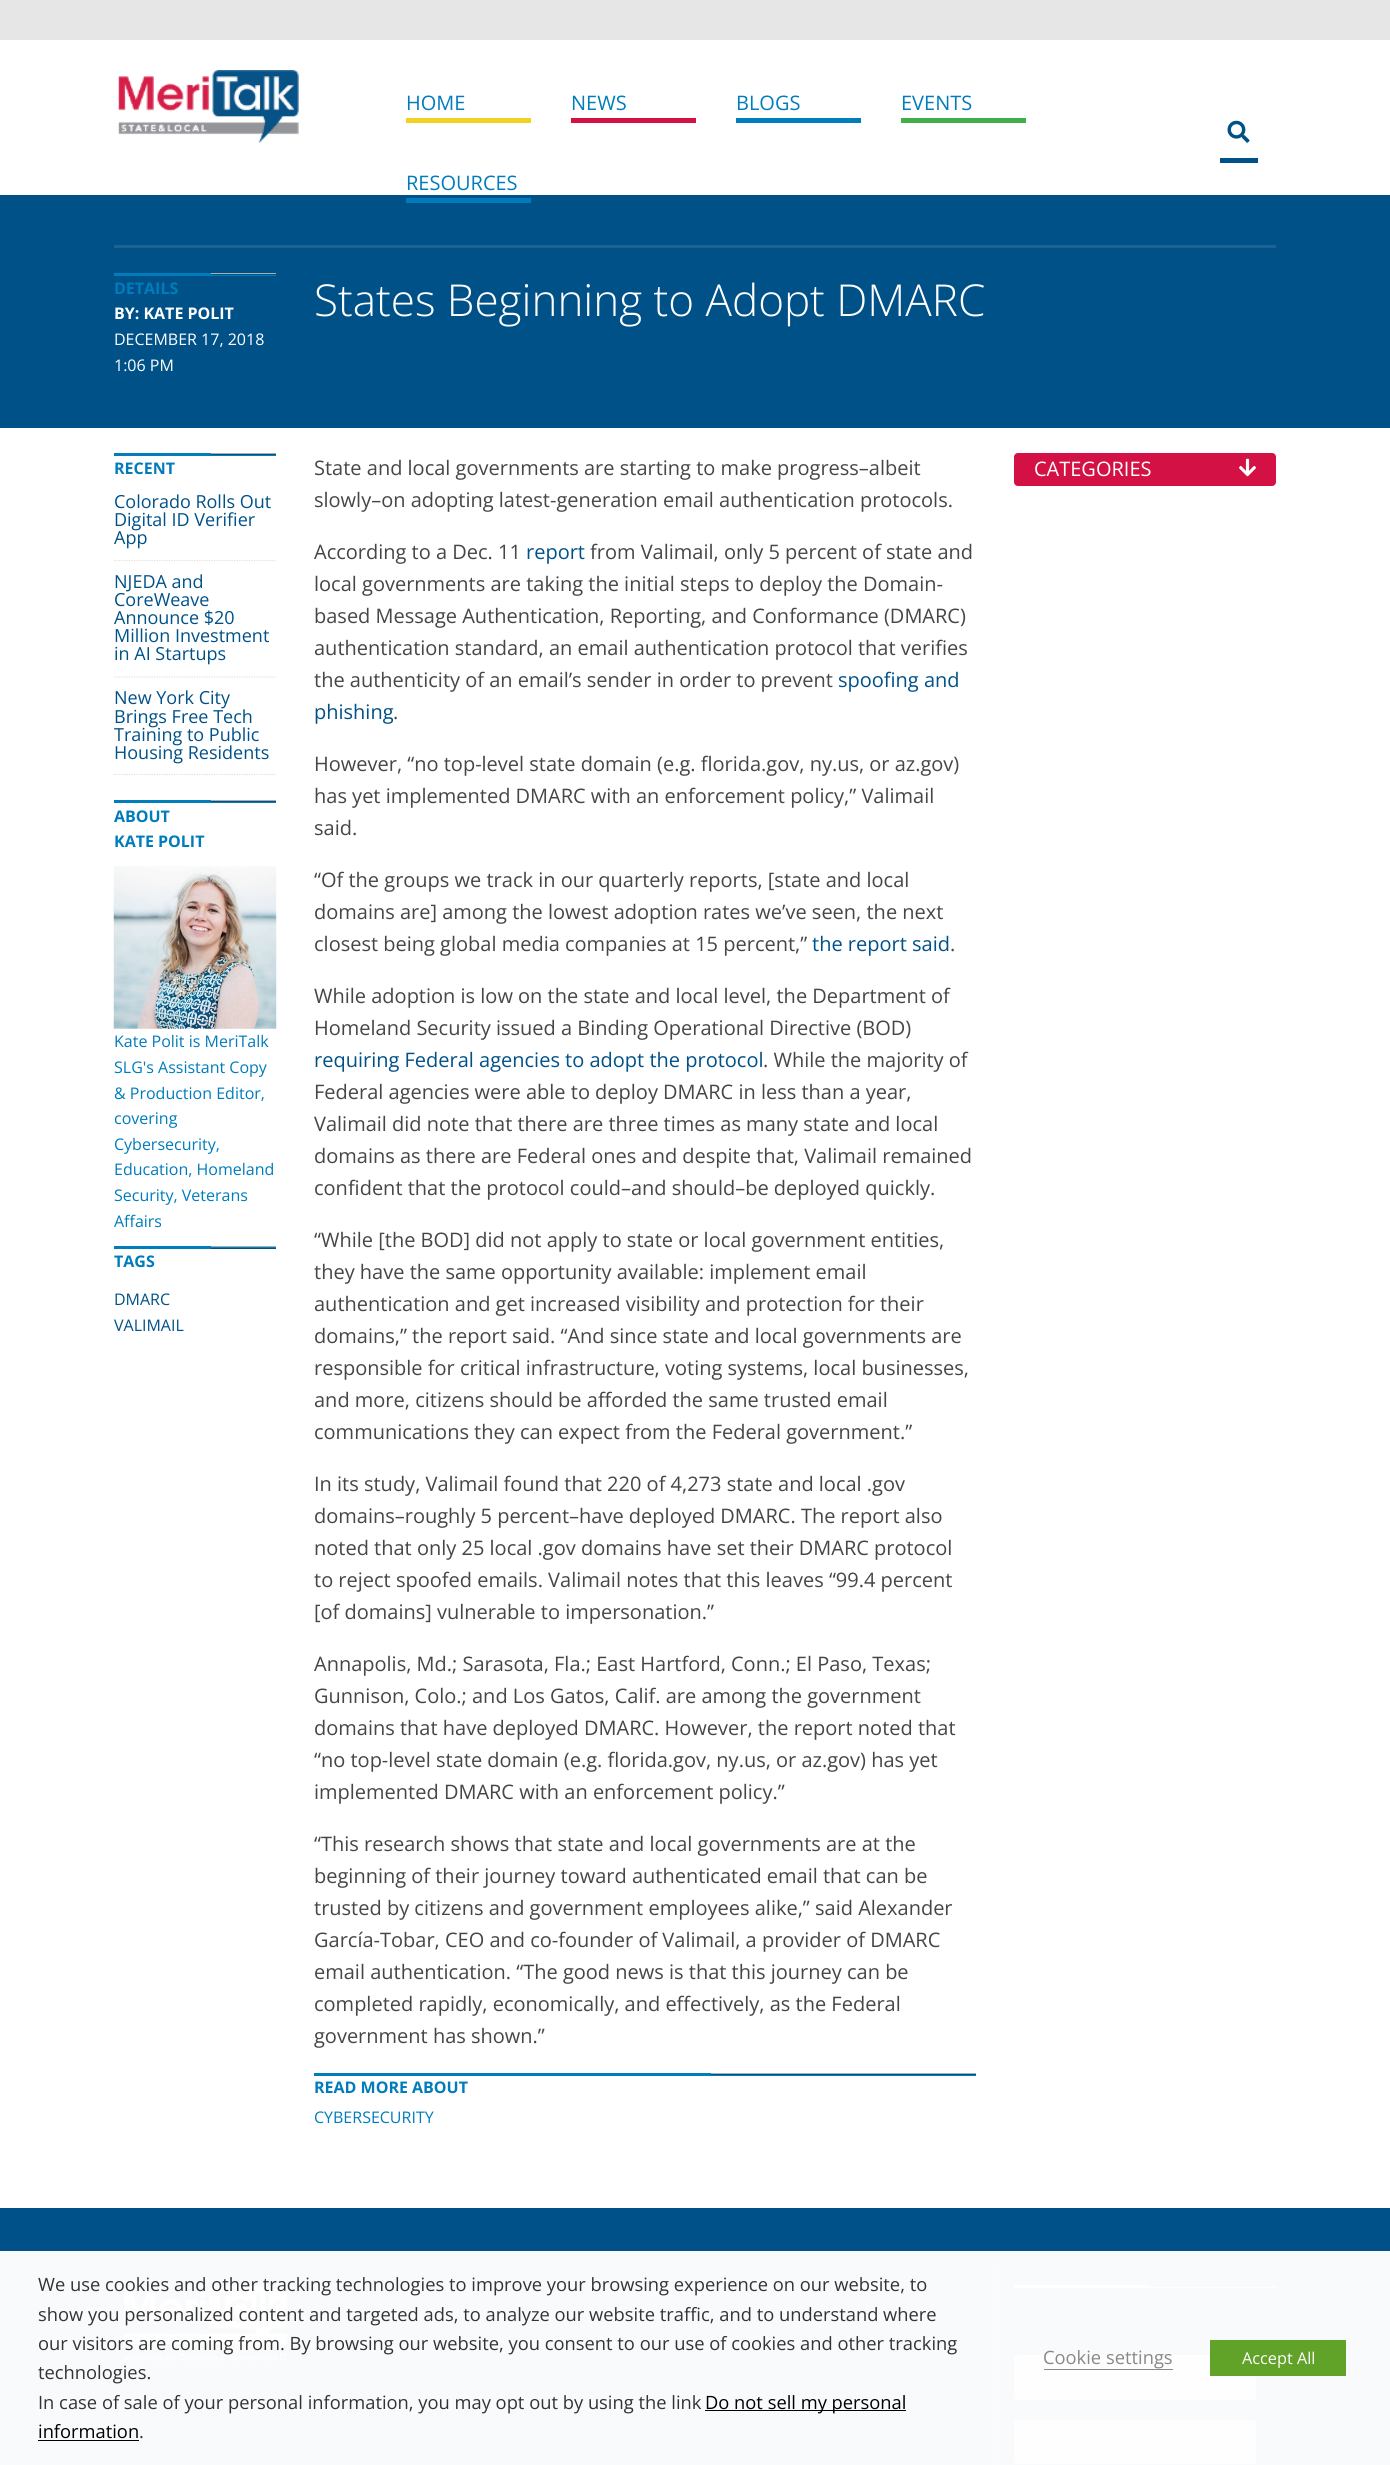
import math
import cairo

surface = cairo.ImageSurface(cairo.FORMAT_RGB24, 1390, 2465)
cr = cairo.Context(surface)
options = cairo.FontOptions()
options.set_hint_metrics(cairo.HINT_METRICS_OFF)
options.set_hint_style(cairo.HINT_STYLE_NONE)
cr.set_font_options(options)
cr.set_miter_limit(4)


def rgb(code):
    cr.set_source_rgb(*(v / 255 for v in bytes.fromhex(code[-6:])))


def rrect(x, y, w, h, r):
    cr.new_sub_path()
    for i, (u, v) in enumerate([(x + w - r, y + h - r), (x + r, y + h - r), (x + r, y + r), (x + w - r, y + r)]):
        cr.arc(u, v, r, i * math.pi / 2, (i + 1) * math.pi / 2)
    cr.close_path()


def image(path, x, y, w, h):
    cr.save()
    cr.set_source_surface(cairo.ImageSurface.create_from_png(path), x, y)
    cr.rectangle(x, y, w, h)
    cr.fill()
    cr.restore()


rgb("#ffffff")
cr.paint()
rgb("#e6e6e6")
cr.rectangle(0, 0, 1390, 40)
cr.fill()
image("img/1.png", 118, 70, 181, 73)
for x, y, w, h, color in [
    (406, 118, 125, 5, "#f1d121"),
    (571, 118, 125, 5, "#d31145"),
    (736, 118, 125, 5, "#007dbb"),
    (901, 118, 125, 5, "#40ae49"),
    (0, 195, 1390, 233, "#005188"),
    (406, 198, 125, 5, "#007cbc"),
    (1220, 158, 38, 5, "#00508a"),
]:
    rgb(color)
    cr.rectangle(x, y, w, h)
    cr.fill()
image("img/2.png", 1227, 120, 23, 23)
for x, y, w, h, color in [
    (114, 245, 1162, 3, "#1a6394"),
    (114, 273, 162, 3, "#007dbb"),
    (211, 273, 65, 1, "#aeaeae"),
    (211, 274, 65, 1, "#005188"),
    (114, 453, 162, 3, "#007dbb"),
    (211, 453, 65, 1, "#aeaeae"),
    (211, 454, 65, 1, "#005188"),
]:
    rgb(color)
    cr.rectangle(x, y, w, h)
    cr.fill()
cr.new_path()
cr.move_to(114, 560.5)
cr.line_to(276, 560.5)
rgb("#e1e1e1")
cr.set_line_width(1.2)
cr.set_dash([1.25, 1.25])
cr.stroke()
cr.new_path()
cr.move_to(114, 677)
cr.line_to(276, 677)
cr.stroke()
cr.new_path()
cr.move_to(114, 774.5)
cr.line_to(276, 774.5)
cr.stroke()
for x, y, w, h, color in [
    (114, 800, 162, 3, "#007dbb"),
    (211, 800, 65, 1, "#aeaeae"),
    (211, 801, 65, 1, "#005188"),
]:
    rgb(color)
    cr.rectangle(x, y, w, h)
    cr.fill()
image("img/3.png", 113, 866, 164, 163)
for x, y, w, h, color in [
    (114, 1246, 162, 3, "#007dbb"),
    (211, 1246, 65, 1, "#aeaeae"),
    (211, 1248, 65, 1, "#005188"),
    (314, 2073, 662, 3, "#007dbb"),
    (711, 2073, 265, 1, "#aeaeae"),
    (711, 2074, 265, 1, "#005188"),
]:
    rgb(color)
    cr.rectangle(x, y, w, h)
    cr.fill()
rgb("#d31145")
rrect(1014, 453, 262, 33, 4)
cr.fill()
image("img/4.png", 1239, 458, 17, 19)
rgb("#00508a")
cr.rectangle(0, 2208, 1390, 257)
cr.fill()
rgb("#3c7ca8")
cr.rectangle(994, 2260, 1, 205)
cr.fill()
image("img/5.png", 123, 2286, 170, 77)
for x, y, w, h, color in [
    (1014, 2285, 262, 3, "#ffffff"),
    (1150, 2285, 126, 1, "#3c7ca8"),
    (1150, 2286, 126, 1, "#00508a"),
]:
    rgb(color)
    cr.rectangle(x, y, w, h)
    cr.fill()
rgb("#ebebeb")
rrect(1014, 2355, 242, 45, 4)
cr.fill()
rrect(1014, 2420, 242, 44, 4)
cr.fill()
cr.set_source_rgba(1, 1, 1, 0.97)
cr.rectangle(0, 2251, 1390, 214)
cr.fill()
rgb("#000000")
cr.rectangle(705, 2410, 201, 1)
cr.rectangle(38, 2440, 101, 1)
cr.fill()
rgb("#898888")
cr.rectangle(1044, 2369, 129, 1)
cr.fill()
rgb("#61a229")
cr.rectangle(1210, 2340, 136, 36)
cr.fill()
cr.select_font_face("Open Sans")
cr.set_font_size(20)
rgb("#007cbc")
for x, y, s in [
    (406, 110, "HOME"),
    (571, 110, "NEWS"),
    (736, 110, "BLOGS"),
    (901, 110, "EVENTS"),
    (406, 190, "RESOURCES"),
]:
    cr.move_to(x, y)
    cr.show_text(s)
cr.select_font_face("Open Sans", cairo.FONT_SLANT_NORMAL, cairo.FONT_WEIGHT_BOLD)
cr.set_font_size(16)
cr.move_to(114, 294)
cr.show_text("DETAILS")
rgb("#ffffff")
cr.move_to(114, 319)
cr.show_text("BY: KATE POLIT")
cr.select_font_face("Open Sans")
cr.move_to(114, 345)
cr.show_text("DECEMBER 17, 2018")
cr.move_to(114, 371)
cr.show_text("1:06 PM")
cr.select_font_face("Open Sans Light")
cr.set_font_size(44)
cr.move_to(314, 316)
cr.show_text("States Beginning to Adopt DMARC")
cr.select_font_face("Open Sans", cairo.FONT_SLANT_NORMAL, cairo.FONT_WEIGHT_BOLD)
cr.set_font_size(16)
rgb("#007cbc")
cr.move_to(114, 474)
cr.show_text("RECENT")
cr.select_font_face("Open Sans")
cr.set_font_size(18)
rgb("#005188")
for x, y, s in [
    (114, 508, "Colorado Rolls Out"),
    (114, 526, "Digital ID Verifier"),
    (114, 544, "App"),
    (114, 588, "NJEDA and"),
    (114, 606, "CoreWeave"),
    (114, 624, "Announce $20"),
    (114, 642, "Million Investment"),
    (114, 660, "in AI Startups"),
    (114, 704, "New York City"),
    (114, 723, "Brings Free Tech"),
    (114, 741, "Training to Public"),
    (114, 759, "Housing Residents"),
]:
    cr.move_to(x, y)
    cr.show_text(s)
cr.select_font_face("Open Sans", cairo.FONT_SLANT_NORMAL, cairo.FONT_WEIGHT_BOLD)
cr.set_font_size(16)
rgb("#007cbc")
cr.move_to(114, 822)
cr.show_text("ABOUT")
cr.move_to(114, 847)
cr.show_text("KATE POLIT")
cr.select_font_face("Open Sans")
for x, y, s in [
    (114, 1047, "Kate Polit is MeriTalk"),
    (114, 1073, "SLG's Assistant Copy"),
    (114, 1099, "& Production Editor,"),
    (114, 1124, "covering"),
    (114, 1150, "Cybersecurity,"),
    (114, 1175, "Education, Homeland"),
    (114, 1201, "Security, Veterans"),
    (114, 1227, "Affairs"),
]:
    cr.move_to(x, y)
    cr.show_text(s)
cr.select_font_face("Open Sans", cairo.FONT_SLANT_NORMAL, cairo.FONT_WEIGHT_BOLD)
cr.move_to(114, 1267)
cr.show_text("TAGS")
cr.select_font_face("Open Sans")
rgb("#005188")
cr.move_to(114, 1305)
cr.show_text("DMARC")
cr.move_to(114, 1331)
cr.show_text("VALIMAIL")
cr.set_font_size(20)
rgb("#464646")
for x, y, s in [
    (314, 475, "State and local governments are starting to make progress–albeit"),
    (314, 507, "slowly–on adopting latest-generation email authentication protocols."),
    (314, 559, "According to a Dec. 11"),
]:
    cr.move_to(x, y)
    cr.show_text(s)
rgb("#005188")
cr.move_to(526, 559)
cr.show_text("report")
rgb("#464646")
for x, y, s in [
    (590, 559, "from Valimail, only 5 percent of state and"),
    (314, 591, "local governments are taking the initial steps to deploy the Domain-"),
    (314, 623, "based Message Authentication, Reporting, and Conformance (DMARC)"),
    (314, 655, "authentication standard, an email authentication protocol that verifies"),
    (314, 687, "the authenticity of an email’s sender in order to prevent"),
]:
    cr.move_to(x, y)
    cr.show_text(s)
rgb("#005188")
cr.move_to(838, 687)
cr.show_text("spoofing and")
cr.move_to(314, 719)
cr.show_text("phishing")
rgb("#464646")
for x, y, s in [
    (393, 719, "."),
    (314, 771, "However, “no top-level state domain (e.g. florida.gov, ny.us, or az.gov)"),
    (314, 803, "has yet implemented DMARC with an enforcement policy,” Valimail"),
    (314, 835, "said."),
    (314, 887, "“Of the groups we track in our quarterly reports, [state and local"),
    (314, 919, "domains are] among the lowest adoption rates we’ve seen, the next"),
    (314, 951, "closest being global media companies at 15 percent,”"),
]:
    cr.move_to(x, y)
    cr.show_text(s)
rgb("#005188")
cr.move_to(812, 951)
cr.show_text("the report said")
rgb("#464646")
for x, y, s in [
    (950, 951, "."),
    (314, 1003, "While adoption is low on the state and local level, the Department of"),
    (314, 1035, "Homeland Security issued a Binding Operational Directive (BOD)"),
]:
    cr.move_to(x, y)
    cr.show_text(s)
rgb("#005188")
cr.move_to(314, 1067)
cr.show_text("requiring Federal agencies to adopt the protocol")
rgb("#464646")
for x, y, s in [
    (763, 1067, ". While the majority of"),
    (314, 1099, "Federal agencies were able to deploy DMARC in less than a year,"),
    (314, 1131, "Valimail did note that there are three times as many state and local"),
    (314, 1163, "domains as there are Federal ones and despite that, Valimail remained"),
    (314, 1195, "confident that the protocol could–and should–be deployed quickly."),
    (314, 1247, "“While [the BOD] did not apply to state or local government entities,"),
    (314, 1279, "they have the same opportunity available: implement email"),
    (314, 1311, "authentication and get increased visibility and protection for their"),
    (314, 1343, "domains,” the report said. “And since state and local governments are"),
    (314, 1375, "responsible for critical infrastructure, voting systems, local businesses,"),
    (314, 1407, "and more, citizens should be afforded the same trusted email"),
    (314, 1439, "communications they can expect from the Federal government.”"),
    (314, 1491, "In its study, Valimail found that 220 of 4,273 state and local .gov"),
    (314, 1523, "domains–roughly 5 percent–have deployed DMARC. The report also"),
    (314, 1555, "noted that only 25 local .gov domains have set their DMARC protocol"),
    (314, 1587, "to reject spoofed emails. Valimail notes that this leaves “99.4 percent"),
    (314, 1619, "[of domains] vulnerable to impersonation.”"),
    (314, 1671, "Annapolis, Md.; Sarasota, Fla.; East Hartford, Conn.; El Paso, Texas;"),
    (314, 1703, "Gunnison, Colo.; and Los Gatos, Calif. are among the government"),
    (314, 1735, "domains that have deployed DMARC. However, the report noted that"),
    (314, 1767, "“no top-level state domain (e.g. florida.gov, ny.us, or az.gov) has yet"),
    (314, 1799, "implemented DMARC with an enforcement policy.”"),
    (314, 1851, "“This research shows that state and local governments are at the"),
    (314, 1883, "beginning of their journey toward authenticated email that can be"),
    (314, 1915, "trusted by citizens and government employees alike,” said Alexander"),
    (314, 1947, "García-Tobar, CEO and co-founder of Valimail, a provider of DMARC"),
    (314, 1979, "email authentication. “The good news is that this journey can be"),
    (314, 2011, "completed rapidly, economically, and effectively, as the Federal"),
    (314, 2043, "government has shown.”"),
]:
    cr.move_to(x, y)
    cr.show_text(s)
cr.select_font_face("Open Sans", cairo.FONT_SLANT_NORMAL, cairo.FONT_WEIGHT_BOLD)
cr.set_font_size(16)
rgb("#007cbc")
cr.move_to(314, 2093)
cr.show_text("READ MORE ABOUT")
cr.select_font_face("Open Sans")
cr.move_to(314, 2123)
cr.show_text("CYBERSECURITY")
cr.set_font_size(20)
rgb("#ffffff")
cr.move_to(1034, 476)
cr.show_text("CATEGORIES")
cr.set_font_size(18.33)
rgb("#333333")
for x, y, s in [
    (38, 2291, "We use cookies and other tracking technologies to improve your browsing experience on our website, to"),
    (38, 2321, "show you personalized content and targeted ads, to analyze our website traffic, and to understand where"),
    (38, 2350, "our visitors are coming from. By browsing our website, you consent to our use of cookies and other tracking"),
    (38, 2379, "technologies."),
    (38, 2409, "In case of sale of your personal information, you may opt out by using the link"),
]:
    cr.move_to(x, y)
    cr.show_text(s)
rgb("#000000")
cr.move_to(705, 2409)
cr.show_text("Do not sell my personal")
cr.move_to(38, 2438)
cr.show_text("information")
rgb("#333333")
cr.move_to(139, 2438)
cr.show_text(".")
rgb("#898888")
cr.move_to(1043, 2364)
cr.show_text("Cookie settings")
cr.set_font_size(16.25)
rgb("#ffffff")
cr.move_to(1242, 2364)
cr.show_text("Accept All")
surface.write_to_png("page.png")
